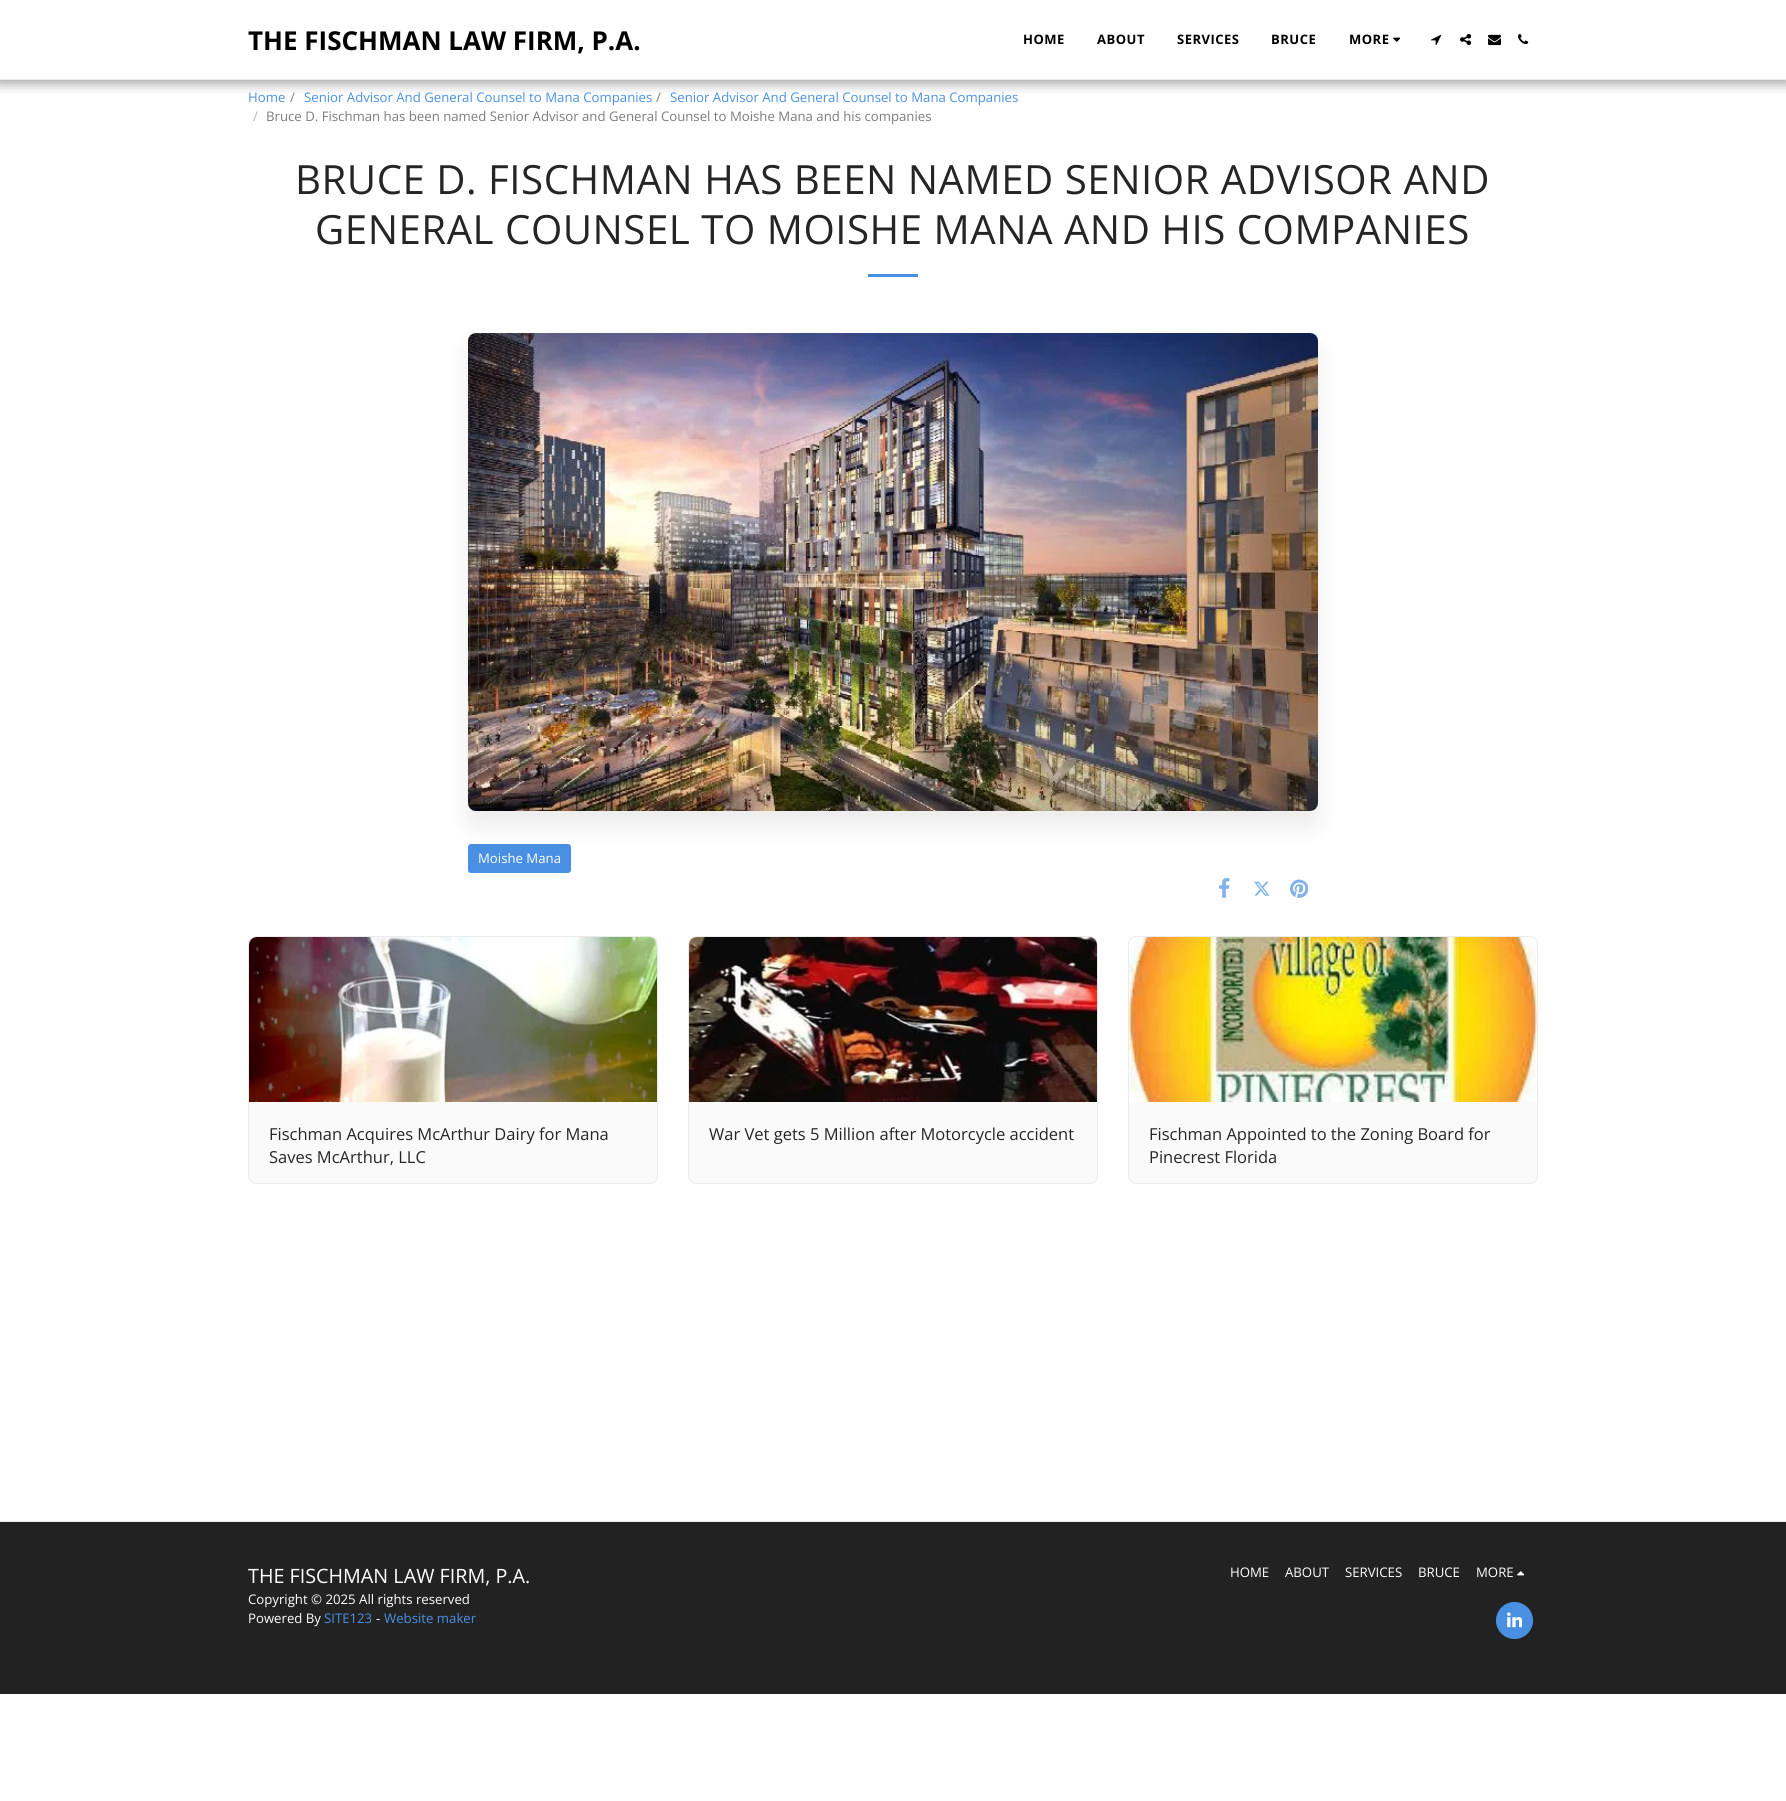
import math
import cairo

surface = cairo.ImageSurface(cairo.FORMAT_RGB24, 1786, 1801)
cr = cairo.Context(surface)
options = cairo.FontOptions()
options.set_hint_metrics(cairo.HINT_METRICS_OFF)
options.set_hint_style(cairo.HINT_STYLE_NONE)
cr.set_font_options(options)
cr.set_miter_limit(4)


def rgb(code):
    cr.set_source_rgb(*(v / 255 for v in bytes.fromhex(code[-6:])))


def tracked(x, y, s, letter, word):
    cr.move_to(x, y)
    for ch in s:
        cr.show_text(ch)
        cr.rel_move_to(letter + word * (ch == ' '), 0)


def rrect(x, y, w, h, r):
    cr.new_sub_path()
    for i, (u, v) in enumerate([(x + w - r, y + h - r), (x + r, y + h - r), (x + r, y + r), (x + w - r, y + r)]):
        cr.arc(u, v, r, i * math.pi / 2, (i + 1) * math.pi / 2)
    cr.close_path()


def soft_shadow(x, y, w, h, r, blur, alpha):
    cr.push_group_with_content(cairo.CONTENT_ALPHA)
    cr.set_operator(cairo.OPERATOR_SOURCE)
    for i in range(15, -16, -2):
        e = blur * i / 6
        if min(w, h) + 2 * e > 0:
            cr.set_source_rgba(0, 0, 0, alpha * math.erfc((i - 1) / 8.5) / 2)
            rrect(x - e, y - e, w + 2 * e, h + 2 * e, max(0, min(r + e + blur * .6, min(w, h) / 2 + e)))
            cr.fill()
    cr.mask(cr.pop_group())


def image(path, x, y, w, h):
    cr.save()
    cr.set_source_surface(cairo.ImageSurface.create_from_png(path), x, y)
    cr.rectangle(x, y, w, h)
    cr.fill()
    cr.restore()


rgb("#ffffff")
cr.paint()
cr.save()
cr.rectangle(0, 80, 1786, 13)
cr.clip()
rgb("#000000")
soft_shadow(-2, 0, 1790, 84, 0, 6, 0.35)
cr.restore()
rgb("#ebebeb")
cr.rectangle(0, 79, 1786, 1)
cr.fill()
image("img/1.png", 1393, 37, 7, 5)
image("img/2.png", 1431, 34, 11, 11)
image("img/3.png", 1460, 33, 11, 13)
image("img/4.png", 1488, 34, 13, 12)
image("img/5.png", 1518, 34, 11, 11)
rgb("#4a90e2")
cr.rectangle(868, 274, 50, 3)
cr.fill()
rgb("#000000")
soft_shadow(468, 348, 850, 478, 8, 12.5, 0.08)
image("img/6.png", 468, 333, 850, 478)
rgb("#4a90e2")
rrect(468, 844, 103, 29, 3)
cr.fill()
image("img/7.png", 1219, 878, 11, 20)
image("img/8.png", 1254, 881, 16, 15)
image("img/9.png", 1290, 879, 18, 19)
rgb("#fafafa")
rrect(248.5, 936.5, 409, 247, 7.5)
cr.fill_preserve()
rgb("#ebebeb")
cr.set_line_width(1)
cr.stroke()
image("img/10.png", 249, 937, 408, 165)
rgb("#fafafa")
rrect(688.5, 936.5, 409, 247, 7.5)
cr.fill_preserve()
rgb("#ebebeb")
cr.stroke()
image("img/11.png", 689, 937, 408, 165)
rgb("#fafafa")
rrect(1128.5, 936.5, 409, 247, 7.5)
cr.fill_preserve()
rgb("#ebebeb")
cr.stroke()
image("img/12.png", 1129, 937, 408, 165)
rgb("#222222")
cr.rectangle(0, 1522, 1786, 172)
cr.fill()
rgb("#ebebeb")
cr.rectangle(0, 1521, 1786, 1)
cr.fill()
image("img/13.png", 1517, 1571, 7, 5)
rgb("#4a90e2")
cr.arc(1514.5, 1620.5, 18, 0, 2 * math.pi)
cr.fill_preserve()
cr.stroke()
image("img/14.png", 1507, 1612, 15, 16)
cr.select_font_face("Open Sans", cairo.FONT_SLANT_NORMAL, cairo.FONT_WEIGHT_BOLD)
cr.set_font_size(26)
rgb("#000000")
cr.move_to(248, 50)
cr.show_text("THE FISCHMAN LAW FIRM, P.A.")
cr.set_font_size(13)
for x, y, s in [
    (1023, 44, "HOME"),
    (1097, 44, "ABOUT"),
    (1177, 44, "SERVICES"),
    (1271, 44, "BRUCE"),
    (1349, 44, "MORE"),
]:
    tracked(x, y, s, 0.5, 0)
cr.select_font_face("Open Sans")
cr.set_font_size(13.2)
rgb("#4a90e2")
cr.move_to(248, 102)
cr.show_text("Home")
rgb("#7c7c7c")
cr.move_to(290, 102)
cr.show_text("/")
rgb("#4a90e2")
cr.move_to(304, 102)
cr.show_text("Senior Advisor And General Counsel to Mana Companies")
rgb("#7c7c7c")
cr.move_to(656, 102)
cr.show_text("/")
rgb("#4a90e2")
cr.move_to(670, 102)
cr.show_text("Senior Advisor And General Counsel to Mana Companies")
rgb("#b1b1b1")
cr.move_to(253, 121)
cr.show_text("/")
rgb("#7c7c7c")
cr.move_to(266, 121)
cr.show_text("Bruce D. Fischman has been named Senior Advisor and General Counsel to Moishe Mana and his companies")
cr.set_font_size(40.25)
rgb("#252525")
tracked(295, 194, "BRUCE D. FISCHMAN HAS BEEN NAMED SENIOR ADVISOR AND", 0.5, 0)
tracked(315, 244, "GENERAL COUNSEL TO MOISHE MANA AND HIS COMPANIES", 0.5, 0)
cr.set_font_size(13.2)
rgb("#ffffff")
cr.move_to(478, 863)
cr.show_text("Moishe Mana")
cr.set_font_size(16.5)
rgb("#252525")
for x, y, s in [
    (269, 1140, "Fischman Acquires McArthur Dairy for Mana"),
    (269, 1163, "Saves McArthur, LLC"),
    (709, 1140, "War Vet gets 5 Million after Motorcycle accident"),
    (1149, 1140, "Fischman Appointed to the Zoning Board for"),
    (1149, 1163, "Pinecrest Florida"),
]:
    cr.move_to(x, y)
    cr.show_text(s)
cr.set_font_size(19.75)
rgb("#ffffff")
cr.move_to(248, 1583)
cr.show_text("THE FISCHMAN LAW FIRM, P.A.")
cr.set_font_size(13.2)
cr.move_to(248, 1604)
cr.show_text("Copyright © 2025 All rights reserved")
cr.move_to(248, 1623)
cr.show_text("Powered By")
rgb("#4a90e2")
cr.move_to(324, 1623)
cr.show_text("SITE123")
rgb("#ffffff")
cr.move_to(376, 1623)
cr.show_text("-")
rgb("#4a90e2")
cr.move_to(384, 1623)
cr.show_text("Website maker")
rgb("#ffffff")
for x, y, s in [
    (1230, 1577, "HOME"),
    (1285, 1577, "ABOUT"),
    (1345, 1577, "SERVICES"),
    (1418, 1577, "BRUCE"),
    (1476, 1577, "MORE"),
]:
    cr.move_to(x, y)
    cr.show_text(s)
surface.write_to_png("page.png")
